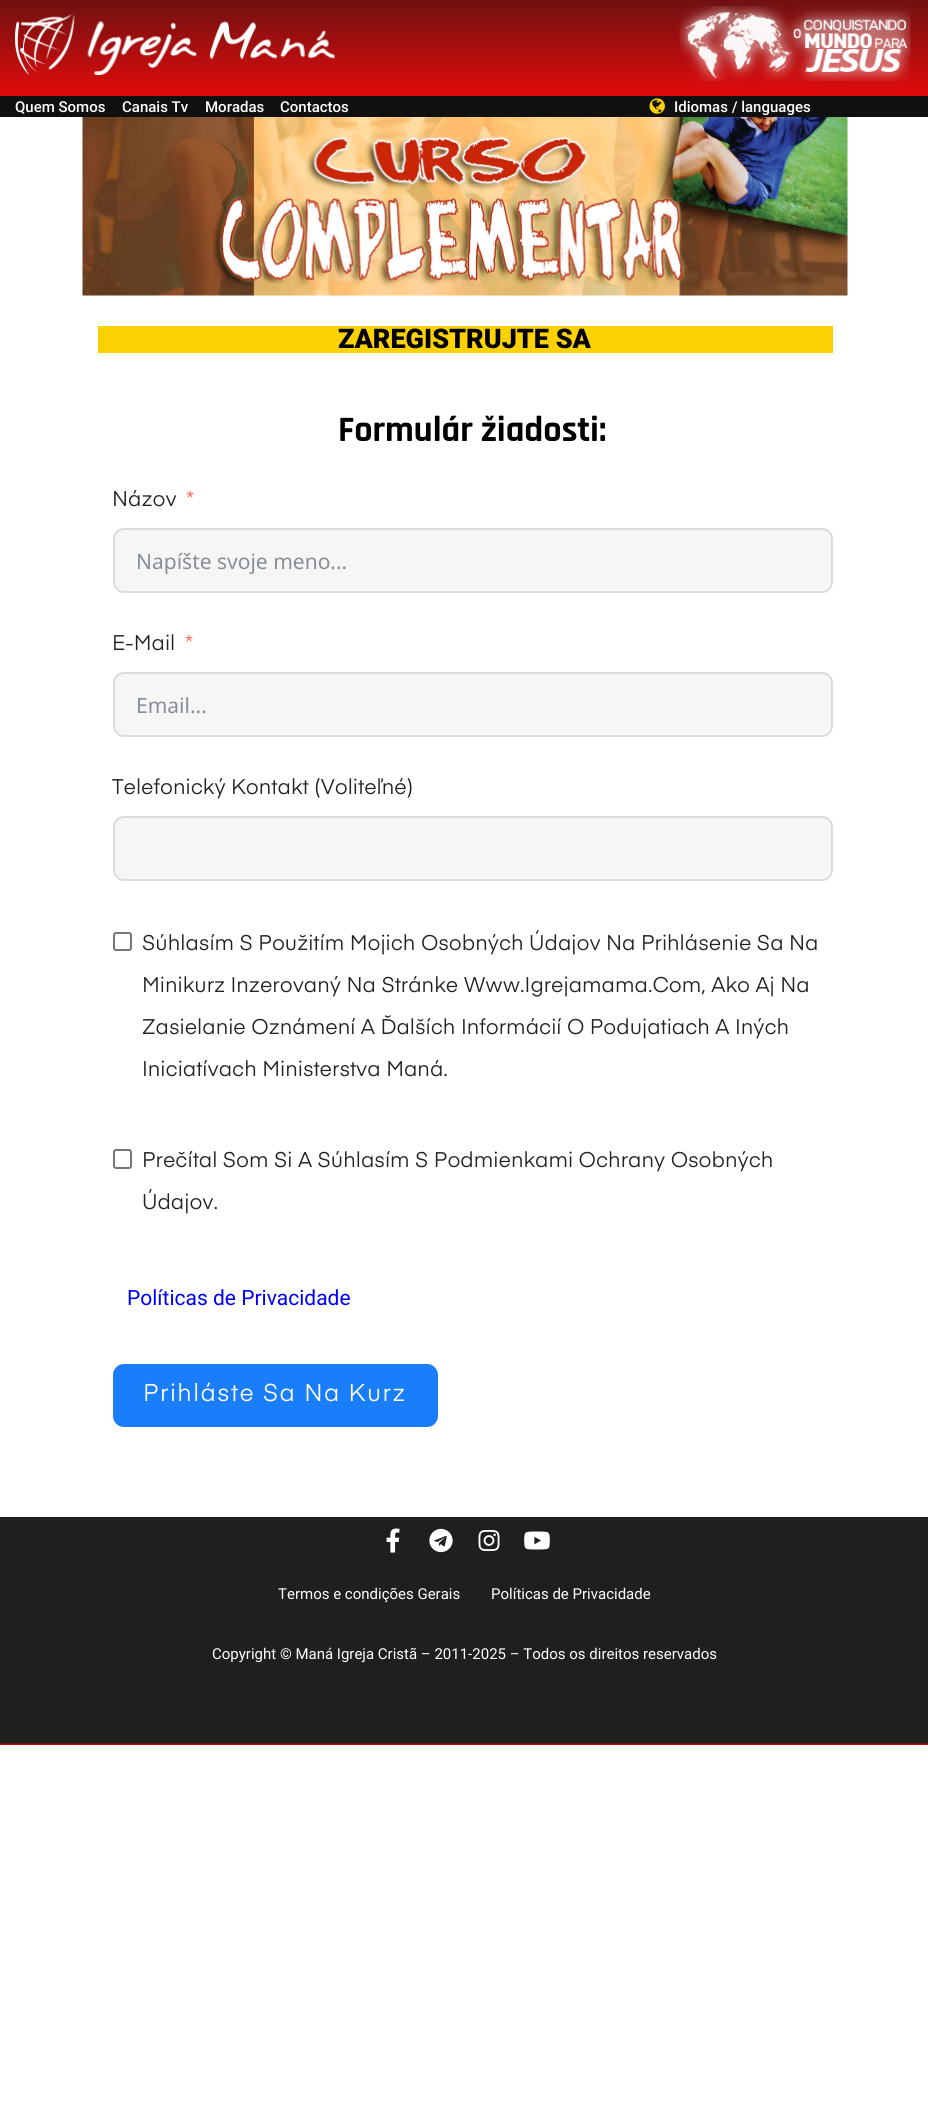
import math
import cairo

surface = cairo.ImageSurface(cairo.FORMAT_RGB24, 928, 2114)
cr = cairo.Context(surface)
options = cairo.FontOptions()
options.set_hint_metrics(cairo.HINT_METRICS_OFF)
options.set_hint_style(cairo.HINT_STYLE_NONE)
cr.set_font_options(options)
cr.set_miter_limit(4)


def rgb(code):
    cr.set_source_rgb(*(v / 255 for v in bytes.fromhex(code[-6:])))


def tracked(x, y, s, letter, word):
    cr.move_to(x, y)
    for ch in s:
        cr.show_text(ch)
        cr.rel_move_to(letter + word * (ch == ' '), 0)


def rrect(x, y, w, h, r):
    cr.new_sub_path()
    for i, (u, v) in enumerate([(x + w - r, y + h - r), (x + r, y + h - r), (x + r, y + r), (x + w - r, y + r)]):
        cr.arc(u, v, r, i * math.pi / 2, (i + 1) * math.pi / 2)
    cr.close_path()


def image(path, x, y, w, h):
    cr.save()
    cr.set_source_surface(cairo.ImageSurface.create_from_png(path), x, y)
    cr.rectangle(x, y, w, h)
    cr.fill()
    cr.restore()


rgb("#ffffff")
cr.paint()
gradient = cairo.LinearGradient(464, 0, 464, 96)
gradient.add_color_stop_rgba(0, 0.435, 0.067, 0.067, 1)
gradient.add_color_stop_rgba(1, 0.886, 0.047, 0.047, 1)
cr.set_source(gradient)
cr.rectangle(0, 0, 928, 96)
cr.fill()
image("img/1.png", 15, 14, 320, 61)
image("img/2.png", 679, 6, 232, 75)
rgb("#101010")
cr.rectangle(0, 96, 928, 21)
cr.fill()
image("img/3.png", 649, 98, 16, 16)
image("img/4.png", 82, 117, 766, 179)
rgb("#fcd204")
cr.rectangle(98, 326, 735, 27)
cr.fill()
rgb("#f6f6f6")
rrect(114, 529, 718, 63, 10)
cr.fill_preserve()
rgb("#dadbdd")
cr.stroke()
rgb("#f6f6f6")
rrect(114, 673, 718, 63, 10)
cr.fill_preserve()
rgb("#dadbdd")
cr.stroke()
rgb("#f6f6f6")
rrect(114, 817, 718, 63, 10)
cr.fill_preserve()
rgb("#dadbdd")
cr.stroke()
rrect(114, 933, 17, 17, 2)
rgb("#767676")
cr.stroke()
rrect(114, 1150, 17, 18, 2)
cr.stroke()
rgb("#1a7efb")
rrect(113, 1364, 325, 63, 11)
cr.fill()
gradient = cairo.LinearGradient(464, 1517, 464, 1745)
gradient.add_color_stop_rgba(0.99, 0.125, 0.118, 0.118, 1)
gradient.add_color_stop_rgba(1, 0.914, 0.012, 0.012, 1)
cr.set_source(gradient)
cr.rectangle(0, 1517, 928, 228)
cr.fill()
image("img/5.png", 386, 1528, 14, 25)
image("img/6.png", 429, 1528, 24, 25)
image("img/7.png", 478, 1529, 22, 22)
image("img/8.png", 524, 1531, 26, 19)
cr.select_font_face("Roboto Medium")
cr.set_font_size(15)
rgb("#ffffff")
for x, y, s in [
    (15, 112, "Quem Somos"),
    (122, 112, "Canais Tv"),
    (205, 112, "Moradas"),
    (280, 112, "Contactos"),
    (674, 112, "Idiomas / languages"),
]:
    cr.move_to(x, y)
    cr.show_text(s)
cr.select_font_face("Roboto Black")
cr.set_font_size(27)
rgb("#000000")
cr.move_to(338, 348)
cr.show_text("ZAREGISTRUJTE SA")
cr.select_font_face("Rajdhani", cairo.FONT_SLANT_NORMAL, cairo.FONT_WEIGHT_BOLD)
cr.set_font_size(36)
cr.move_to(338, 441)
cr.show_text("Formulár žiadosti:")
cr.select_font_face("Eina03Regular")
cr.set_font_size(21)
rgb("#222222")
cr.move_to(112, 506)
cr.show_text("Názov")
rgb("#f56c6c")
cr.move_to(186, 506)
cr.show_text("*")
cr.select_font_face("Noto Sans")
rgb("#868e96")
cr.move_to(136, 569)
cr.show_text("Napíšte svoje meno...")
cr.select_font_face("Eina03Regular")
rgb("#222222")
cr.move_to(112, 650)
cr.show_text("E-Mail")
rgb("#f56c6c")
cr.move_to(185, 650)
cr.show_text("*")
cr.select_font_face("Noto Sans")
rgb("#868e96")
cr.move_to(136, 713)
cr.show_text("Email...")
cr.select_font_face("Eina03Regular")
rgb("#222222")
for x, y, s in [
    (112, 794, "Telefonický Kontakt (Voliteľné)"),
    (142, 950, "Súhlasím S Použitím Mojich Osobných Údajov Na Prihlásenie Sa Na"),
    (142, 992, "Minikurz Inzerovaný Na Stránke Www.Igrejamama.Com, Ako Aj Na"),
    (142, 1034, "Zasielanie Oznámení A Ďalších Informácií O Podujatiach A Iných"),
    (142, 1076, "Iniciatívach Ministerstva Maná."),
    (142, 1167, "Prečítal Som Si A Súhlasím S Podmienkami Ochrany Osobných"),
    (142, 1209, "Údajov."),
]:
    cr.move_to(x, y)
    cr.show_text(s)
cr.select_font_face("Roboto")
rgb("#0000ff")
cr.move_to(127, 1305)
cr.show_text("Políticas de Privacidade")
cr.select_font_face("Eina03Regular")
cr.set_font_size(24)
rgb("#ffffff")
tracked(143, 1401, "Prihláste Sa Na Kurz", 1.5, 0)
cr.select_font_face("Roboto")
cr.set_font_size(15)
for x, y, s in [
    (278, 1599, "Termos e condições Gerais"),
    (491, 1599, "Políticas de Privacidade"),
    (212, 1659, "Copyright © Maná Igreja Cristã – 2011-2025 – Todos os direitos reservados"),
]:
    cr.move_to(x, y)
    cr.show_text(s)
surface.write_to_png("page.png")
